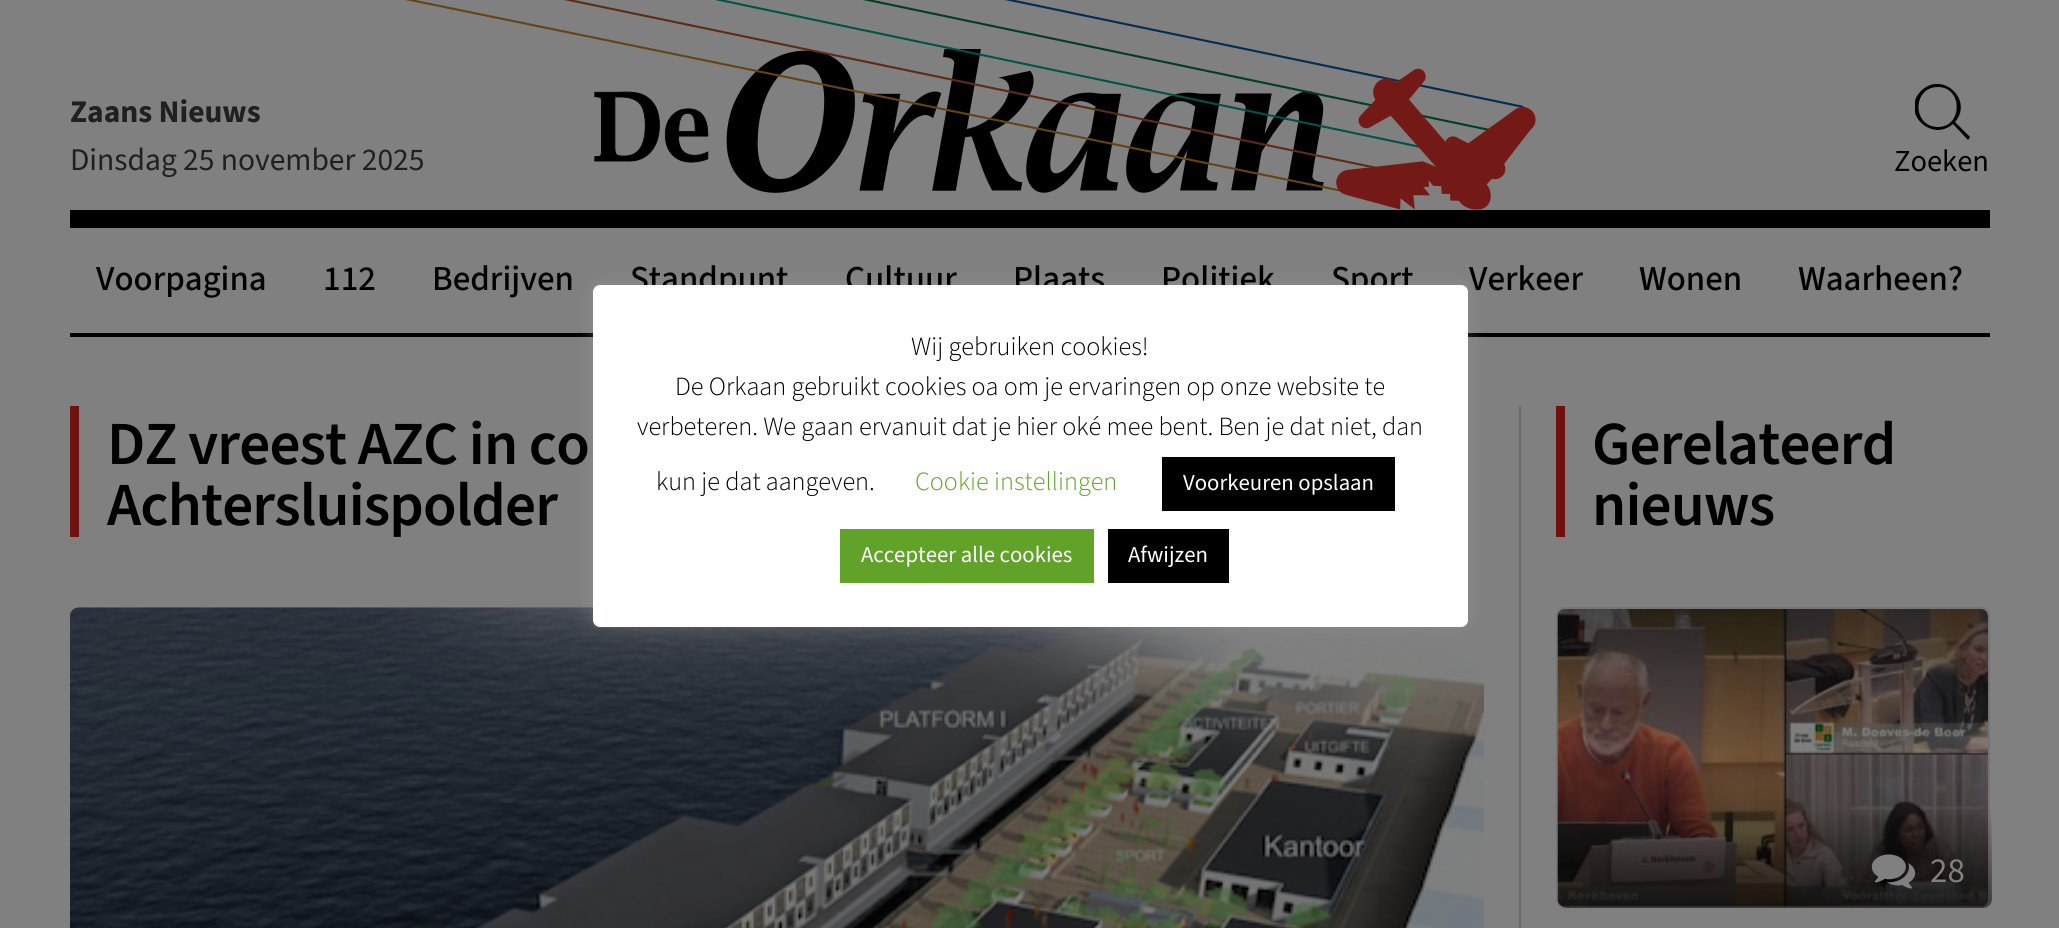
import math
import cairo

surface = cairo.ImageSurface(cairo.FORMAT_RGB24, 2059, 928)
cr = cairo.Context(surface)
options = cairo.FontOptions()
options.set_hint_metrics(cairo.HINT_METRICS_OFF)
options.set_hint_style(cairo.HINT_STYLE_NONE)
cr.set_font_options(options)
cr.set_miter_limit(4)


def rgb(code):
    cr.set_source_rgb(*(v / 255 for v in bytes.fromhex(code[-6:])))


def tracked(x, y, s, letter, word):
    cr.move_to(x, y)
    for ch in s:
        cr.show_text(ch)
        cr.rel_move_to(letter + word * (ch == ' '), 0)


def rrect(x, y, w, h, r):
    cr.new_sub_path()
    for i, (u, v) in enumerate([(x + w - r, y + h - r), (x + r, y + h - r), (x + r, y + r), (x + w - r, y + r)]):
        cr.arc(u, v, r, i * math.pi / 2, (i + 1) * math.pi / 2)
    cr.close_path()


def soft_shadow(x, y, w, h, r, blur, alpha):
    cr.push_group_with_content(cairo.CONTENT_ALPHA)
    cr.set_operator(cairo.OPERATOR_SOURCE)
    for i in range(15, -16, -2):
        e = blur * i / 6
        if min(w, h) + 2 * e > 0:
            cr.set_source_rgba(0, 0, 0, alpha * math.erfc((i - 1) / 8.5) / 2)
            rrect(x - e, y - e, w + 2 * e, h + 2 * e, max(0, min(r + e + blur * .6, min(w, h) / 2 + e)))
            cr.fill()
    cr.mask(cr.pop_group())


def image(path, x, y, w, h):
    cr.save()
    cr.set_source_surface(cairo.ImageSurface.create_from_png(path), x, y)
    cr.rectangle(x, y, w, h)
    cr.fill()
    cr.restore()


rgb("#808080")
cr.paint()
rgb("#000000")
cr.rectangle(70, 210, 1920, 18)
cr.fill()
cr.save()
cr.rectangle(1915, 84, 56, 56)
cr.clip()
cr.set_fill_rule(cairo.FILL_RULE_EVEN_ODD)
cr.new_path()
cr.move_to(1938, 127)
cr.curve_to(1912, 127, 1912, 87, 1938, 87)
cr.curve_to(1963, 87, 1963, 127, 1938, 127)
cr.close_path()
cr.move_to(1955, 122)
cr.curve_to(1974, 100, 1942, 70, 1921, 91)
cr.curve_to(1900, 112, 1931, 143, 1953, 124)
cr.line_to(1968, 140)
cr.line_to(1970, 137)
cr.close_path()
cr.fill()
cr.restore()
cr.rectangle(70, 333, 1920, 4)
cr.fill()
rgb("#71110f")
cr.rectangle(70, 406, 9, 131)
cr.fill()
image("img/2.png", 70, 607, 1414, 321)
rgb("#696b6e")
cr.rectangle(1519, 406, 2, 522)
cr.fill()
rgb("#71110f")
cr.rectangle(1556, 406, 9, 131)
cr.fill()
rrect(1557, 608, 432, 299, 8)
rgb("#737476")
cr.stroke()
image("img/3.png", 1557, 609, 431, 298)
gradient = cairo.LinearGradient(1775, 809, 1775, 908)
gradient.add_color_stop_rgba(0, 0, 0, 0, 0)
gradient.add_color_stop_rgba(1, 0, 0, 0, 0.5)
cr.set_source(gradient)
cr.new_path()
cr.move_to(1558, 809)
cr.line_to(1992, 809)
cr.line_to(1992, 899)
cr.curve_to(1992, 904, 1988, 908, 1983, 908)
cr.line_to(1567, 908)
cr.curve_to(1562, 908, 1558, 904, 1558, 899)
cr.close_path()
cr.fill()
image("img/4.png", 1871, 854, 45, 35)
rgb("#acabab")
soft_shadow(593, 284, 875, 341, 7, 9, 0.3)
cr.select_font_face("Source Sans 3", cairo.FONT_SLANT_NORMAL, cairo.FONT_WEIGHT_BOLD)
cr.set_font_size(31.5)
rgb("#202020")
cr.move_to(70, 122)
cr.show_text("Zaans Nieuws")
cr.select_font_face("Source Sans 3")
cr.move_to(70, 170)
cr.show_text("Dinsdag 25 november 2025")
image("img/1.png", 405, 0, 1131, 210)
cr.set_font_size(30.5)
rgb("#000000")
cr.move_to(1894, 171)
cr.show_text("Zoeken")
cr.select_font_face("Source Sans 3 Medium")
cr.set_font_size(35)
for x, y, s in [
    (96, 290, "Voorpagina"),
    (323, 290, "112"),
    (432, 290, "Bedrijven"),
    (630, 290, "Standpunt"),
    (845, 290, "Cultuur"),
    (1013, 290, "Plaats"),
    (1161, 290, "Politiek"),
    (1331, 290, "Sport"),
    (1469, 290, "Verkeer"),
    (1639, 290, "Wonen"),
    (1798, 290, "Waarheen?"),
]:
    cr.move_to(x, y)
    cr.show_text(s)
cr.select_font_face("Source Sans 3 SemiBold")
cr.set_font_size(61.25)
for x, y, s in [
    (107, 464, "DZ vreest AZC in co"),
    (107, 525, "Achtersluispolder"),
    (1592, 464, "Gerelateerd"),
    (1592, 525, "nieuws"),
]:
    tracked(x, y, s, -0.9, 0)
cr.select_font_face("Source Sans 3")
cr.set_font_size(35)
rgb("#808080")
cr.move_to(1930, 882)
cr.show_text("28")
rgb("#ffffff")
rrect(593, 285, 875, 342, 7)
cr.fill()
cr.select_font_face("Source Sans 3 Light")
cr.set_font_size(26.25)
rgb("#000000")
for x, y, s in [
    (911, 355, "Wij gebruiken cookies!"),
    (675, 395, "De Orkaan gebruikt cookies oa om je ervaringen op onze website te"),
    (637, 435, "verbeteren. We gaan ervanuit dat je hier oké mee bent. Ben je dat niet, dan"),
    (656, 490, "kun je dat aangeven."),
]:
    cr.move_to(x, y)
    cr.show_text(s)
rgb("#62a329")
cr.move_to(915, 490)
cr.show_text("Cookie instellingen")
rgb("#000000")
cr.rectangle(1162, 457, 233, 54)
cr.fill()
cr.select_font_face("Source Sans 3")
cr.set_font_size(22.75)
rgb("#ffffff")
cr.move_to(1183, 490)
cr.show_text("Voorkeuren opslaan")
rgb("#61a229")
cr.rectangle(840, 529, 254, 54)
cr.fill()
rgb("#ffffff")
cr.move_to(861, 562)
cr.show_text("Accepteer alle cookies")
rgb("#000000")
cr.rectangle(1108, 529, 121, 54)
cr.fill()
rgb("#ffffff")
cr.move_to(1128, 562)
cr.show_text("Afwijzen")
surface.write_to_png("page.png")
